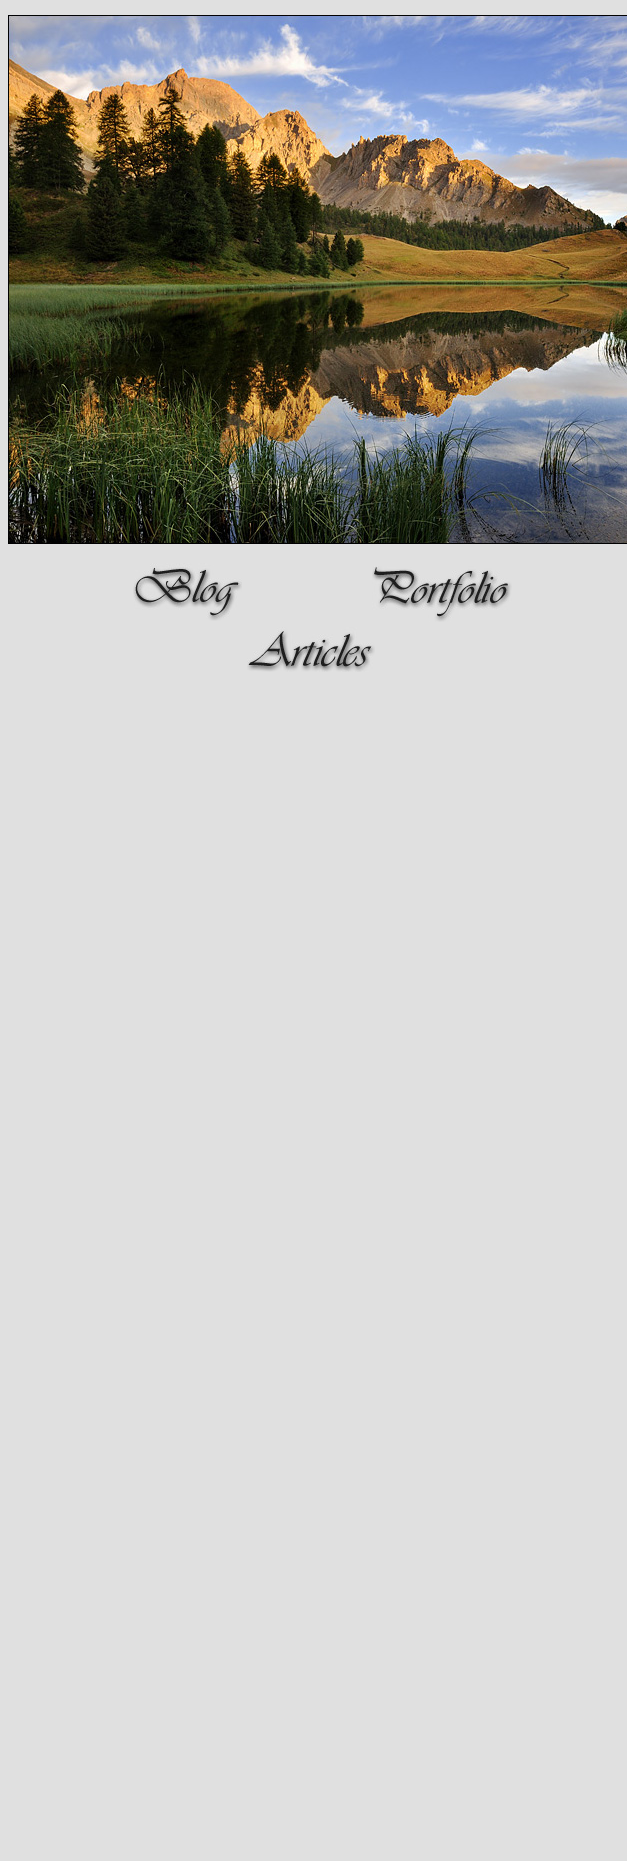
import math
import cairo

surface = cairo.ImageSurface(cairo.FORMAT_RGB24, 627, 1861)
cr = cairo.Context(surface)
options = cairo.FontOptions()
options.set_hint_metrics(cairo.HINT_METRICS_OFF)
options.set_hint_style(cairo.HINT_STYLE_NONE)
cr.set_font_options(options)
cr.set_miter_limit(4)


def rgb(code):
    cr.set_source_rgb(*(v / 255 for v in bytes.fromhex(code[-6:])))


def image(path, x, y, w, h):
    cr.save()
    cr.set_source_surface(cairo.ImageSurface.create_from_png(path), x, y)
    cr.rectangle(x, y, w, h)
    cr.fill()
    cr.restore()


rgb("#e0e0e0")
cr.paint()
image("img/1.png", 8, 15, 619, 529)
image("img/2.png", 133, 563, 109, 58)
image("img/3.png", 372, 566, 140, 56)
image("img/4.png", 247, 627, 128, 45)
surface.write_to_png("page.png")
